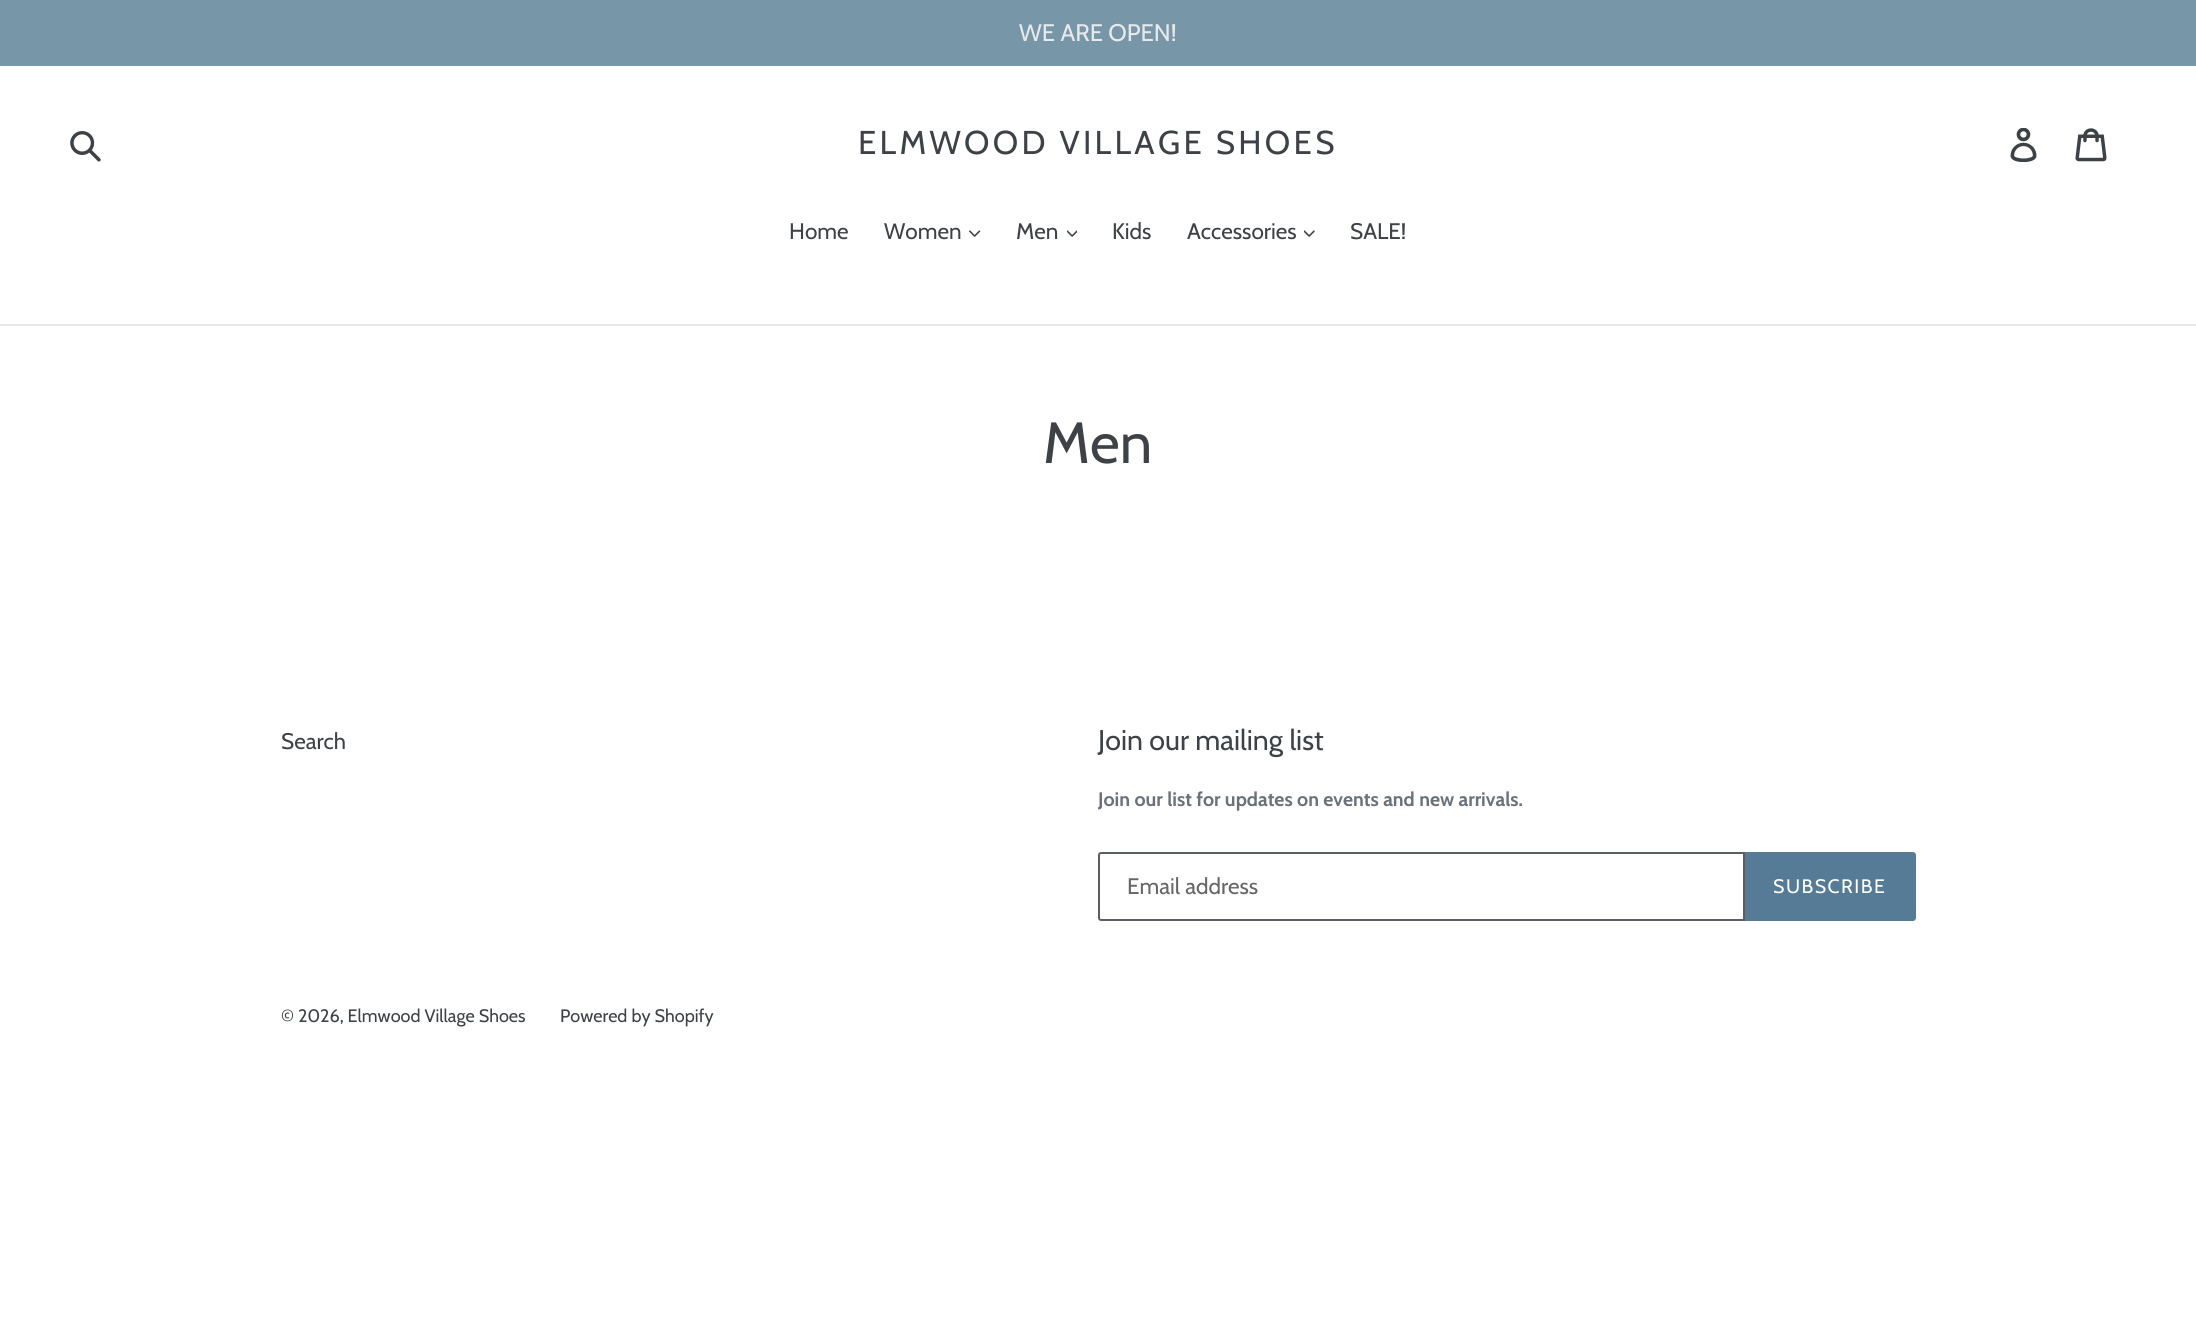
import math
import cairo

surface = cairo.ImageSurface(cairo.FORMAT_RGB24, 2196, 1335)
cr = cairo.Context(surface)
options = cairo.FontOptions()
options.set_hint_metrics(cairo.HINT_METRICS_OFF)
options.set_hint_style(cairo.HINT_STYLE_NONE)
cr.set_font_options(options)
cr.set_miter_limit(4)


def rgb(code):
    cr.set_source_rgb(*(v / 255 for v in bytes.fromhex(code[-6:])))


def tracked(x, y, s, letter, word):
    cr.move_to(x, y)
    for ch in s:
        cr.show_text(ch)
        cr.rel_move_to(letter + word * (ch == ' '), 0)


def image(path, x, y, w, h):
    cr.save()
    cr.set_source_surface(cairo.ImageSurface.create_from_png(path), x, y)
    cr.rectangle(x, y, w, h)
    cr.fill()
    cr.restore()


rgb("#ffffff")
cr.paint()
rgb("#7796a8")
cr.rectangle(0, 0, 2196, 66)
cr.fill()
image("img/1.png", 70, 131, 31, 31)
image("img/2.png", 2010, 128, 27, 34)
image("img/3.png", 2075, 128, 32, 34)
rgb("#e8e9eb")
cr.rectangle(0, 324, 2196, 2)
cr.fill()
image("img/4.png", 969, 230, 12, 7)
image("img/5.png", 1067, 230, 10, 7)
image("img/6.png", 1304, 230, 11, 7)
cr.new_path()
cr.move_to(1101, 853)
cr.line_to(1744, 853)
cr.line_to(1744, 920)
cr.line_to(1101, 920)
cr.curve_to(1100, 920, 1099, 919, 1099, 918)
cr.line_to(1099, 855)
cr.curve_to(1099, 854, 1100, 853, 1101, 853)
cr.close_path()
rgb("#5a5e62")
cr.stroke()
rgb("#557b97")
cr.new_path()
cr.move_to(1745, 852)
cr.line_to(1913, 852)
cr.curve_to(1914.5, 852, 1916, 853.5, 1916, 855)
cr.line_to(1916, 918)
cr.curve_to(1916, 919.5, 1914.5, 921, 1913, 921)
cr.line_to(1745, 921)
cr.close_path()
cr.fill()
cr.select_font_face("Cabin")
cr.set_font_size(24)
rgb("#e8e9eb")
cr.move_to(1019, 41)
cr.show_text("WE ARE OPEN!")
cr.set_font_size(33)
rgb("#3d4246")
tracked(858, 154, "ELMWOOD VILLAGE SHOES", 3.3, 0)
cr.set_font_size(22.5)
for x, y, s in [
    (789, 239, "Home"),
    (884, 239, "Women"),
    (1016, 239, "Men"),
    (1112, 239, "Kids"),
    (1187, 239, "Accessories"),
    (1350, 239, "SALE!"),
]:
    cr.move_to(x, y)
    cr.show_text(s)
cr.set_font_size(58)
cr.move_to(1043, 463)
cr.show_text("Men")
cr.set_font_size(22.5)
cr.move_to(281, 749)
cr.show_text("Search")
cr.set_font_size(28.5)
cr.move_to(1098, 750)
cr.show_text("Join our mailing list")
cr.select_font_face("Cabin", cairo.FONT_SLANT_NORMAL, cairo.FONT_WEIGHT_BOLD)
cr.set_font_size(19.5)
rgb("#69727b")
cr.move_to(1098, 806)
cr.show_text("Join our list for updates on events and new arrivals.")
cr.select_font_face("Cabin")
cr.set_font_size(22.5)
rgb("#666666")
cr.move_to(1127, 894)
cr.show_text("Email address")
cr.set_font_size(19.5)
rgb("#ffffff")
tracked(1773, 893, "SUBSCRIBE", 1.5, 0)
cr.set_font_size(18)
rgb("#3d4246")
cr.move_to(281, 1022)
cr.show_text("© 2026, Elmwood Village Shoes")
cr.move_to(560, 1022)
cr.show_text("Powered by Shopify")
surface.write_to_png("page.png")
